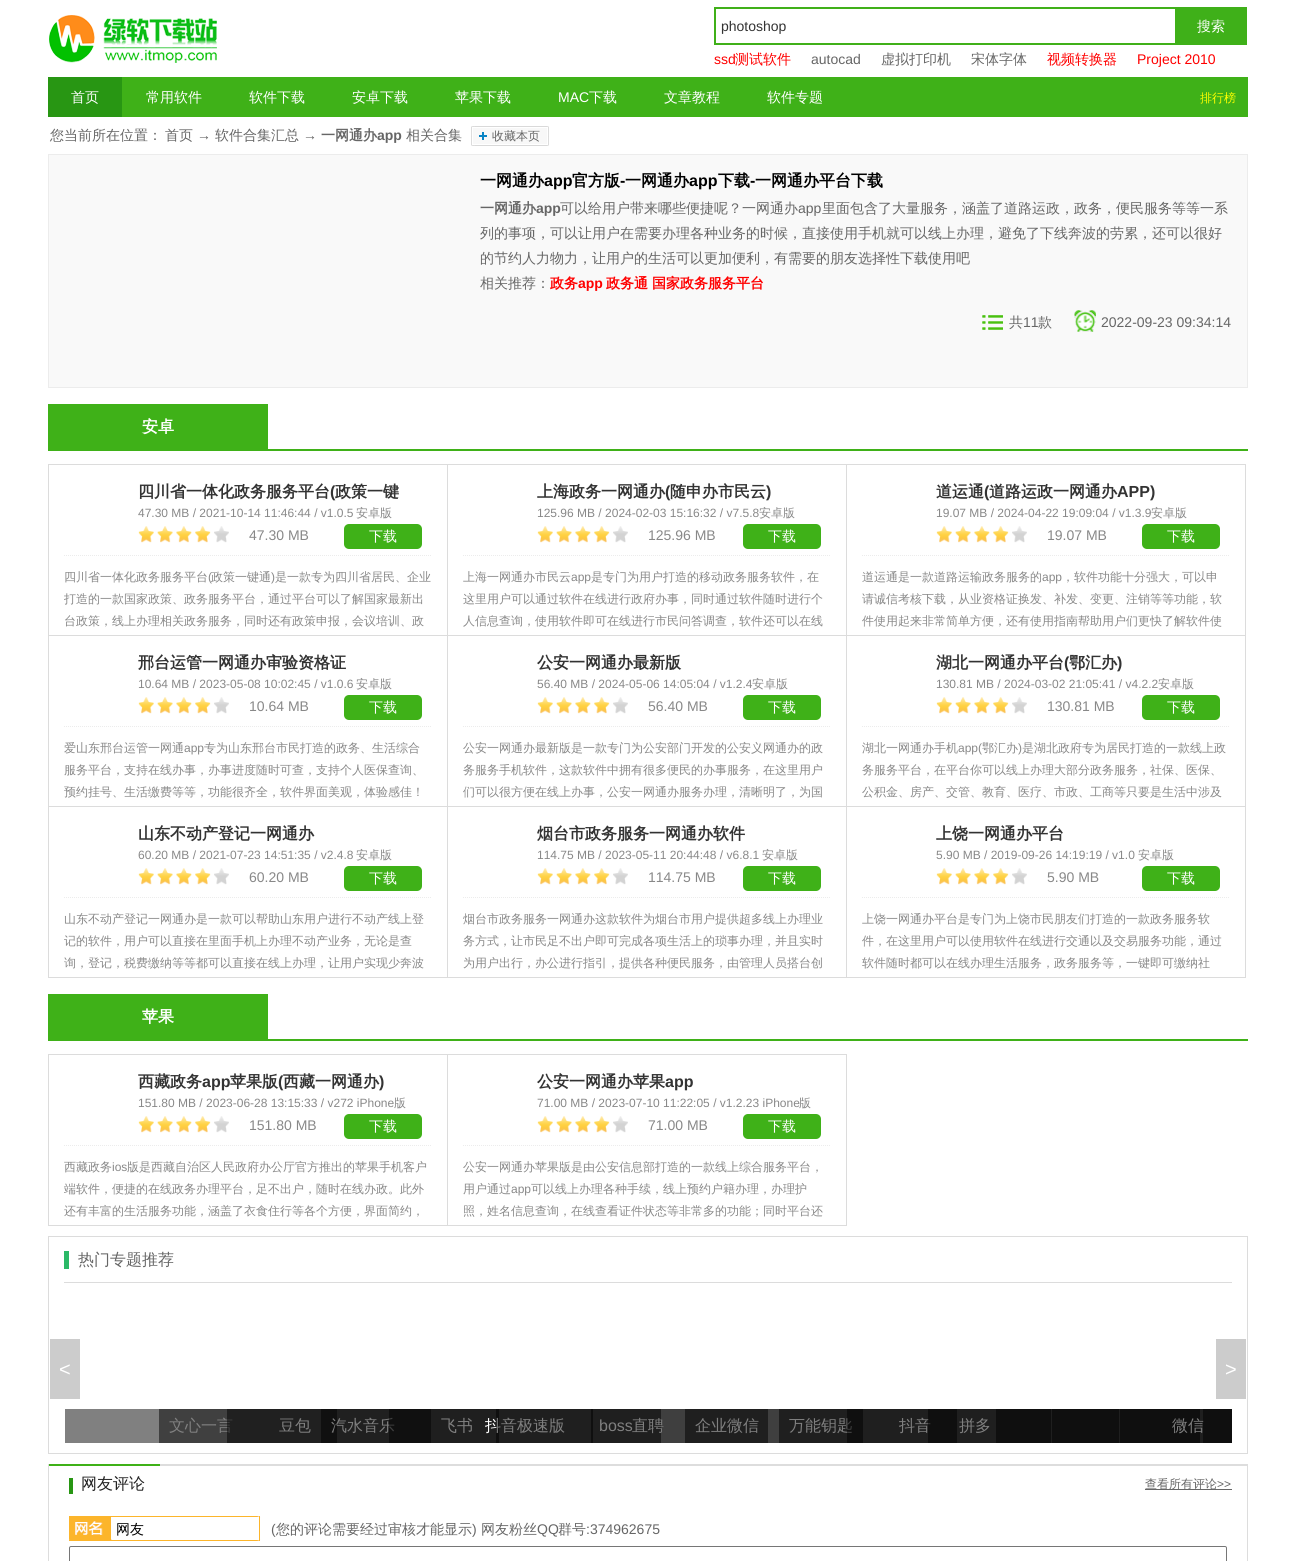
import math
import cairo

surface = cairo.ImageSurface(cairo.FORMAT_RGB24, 1295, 1561)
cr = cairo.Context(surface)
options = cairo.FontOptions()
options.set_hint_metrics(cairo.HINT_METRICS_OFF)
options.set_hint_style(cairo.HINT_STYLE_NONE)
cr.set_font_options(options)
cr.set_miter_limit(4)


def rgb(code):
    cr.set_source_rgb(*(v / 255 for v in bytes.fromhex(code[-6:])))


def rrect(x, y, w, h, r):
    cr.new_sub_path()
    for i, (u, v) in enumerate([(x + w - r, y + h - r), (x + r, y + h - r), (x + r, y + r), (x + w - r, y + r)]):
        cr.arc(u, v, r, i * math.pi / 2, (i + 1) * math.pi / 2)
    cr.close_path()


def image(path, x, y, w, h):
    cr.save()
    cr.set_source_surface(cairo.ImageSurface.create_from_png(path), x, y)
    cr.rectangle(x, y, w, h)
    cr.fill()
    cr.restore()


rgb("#ffffff")
cr.paint()
rgb("#808080")
cr.rectangle(337, 1409, 94, 34)
cr.fill()
image("img/1.png", 49, 15, 168, 48)
for x, y, w, h, color in [
    (714, 7, 461, 2, "#40b019"),
    (714, 43, 461, 2, "#40b019"),
    (714, 7, 2, 38, "#40b019"),
    (1175, 7, 72, 38, "#3fb019"),
    (122, 77, 1126, 40, "#3fb118"),
    (48, 77, 74, 40, "#289613"),
]:
    rgb(color)
    cr.rectangle(x, y, w, h)
    cr.fill()
image("img/2.png", 471, 126, 78, 20)
rgb("#f9f9f9")
cr.rectangle(48.5, 154.5, 1199, 233)
cr.fill_preserve()
rgb("#ececec")
cr.set_line_width(1)
cr.stroke()
image("img/3.png", 982, 315, 21, 15)
image("img/4.png", 1074, 310, 22, 22)
rgb("#3fb118")
cr.rectangle(48, 449, 1200, 2)
cr.fill()
cr.rectangle(48, 404, 220, 45)
cr.fill()
cr.rectangle(48.5, 464.5, 399, 171)
rgb("#dcdcdc")
cr.stroke()
image("img/5.png", 64, 555, 367, 1)
image("img/6.png", 138, 526, 91, 17)
rgb("#3fb118")
rrect(344, 524, 78, 25, 5)
cr.fill()
cr.rectangle(447.5, 464.5, 399, 171)
rgb("#dcdcdc")
cr.stroke()
image("img/5.png", 463, 555, 367, 1)
image("img/6.png", 537, 526, 91, 17)
rgb("#3fb118")
rrect(743, 524, 78, 25, 5)
cr.fill()
cr.rectangle(846.5, 464.5, 399, 171)
rgb("#dcdcdc")
cr.stroke()
image("img/5.png", 862, 555, 367, 1)
image("img/6.png", 936, 526, 91, 17)
rgb("#3fb118")
rrect(1142, 524, 78, 25, 5)
cr.fill()
cr.rectangle(48.5, 635.5, 399, 171)
rgb("#dcdcdc")
cr.stroke()
image("img/5.png", 64, 726, 367, 1)
image("img/6.png", 138, 697, 91, 17)
rgb("#3fb118")
rrect(344, 695, 78, 25, 5)
cr.fill()
cr.rectangle(447.5, 635.5, 399, 171)
rgb("#dcdcdc")
cr.stroke()
image("img/5.png", 463, 726, 367, 1)
image("img/6.png", 537, 697, 91, 17)
rgb("#3fb118")
rrect(743, 695, 78, 25, 5)
cr.fill()
cr.rectangle(846.5, 635.5, 399, 171)
rgb("#dcdcdc")
cr.stroke()
image("img/5.png", 862, 726, 367, 1)
image("img/6.png", 936, 697, 91, 17)
rgb("#3fb118")
rrect(1142, 695, 78, 25, 5)
cr.fill()
cr.rectangle(48.5, 806.5, 399, 171)
rgb("#dcdcdc")
cr.stroke()
image("img/5.png", 64, 897, 367, 1)
image("img/6.png", 138, 868, 91, 17)
rgb("#3fb118")
rrect(344, 866, 78, 25, 5)
cr.fill()
cr.rectangle(447.5, 806.5, 399, 171)
rgb("#dcdcdc")
cr.stroke()
image("img/5.png", 463, 897, 367, 1)
image("img/6.png", 537, 868, 91, 17)
rgb("#3fb118")
rrect(743, 866, 78, 25, 5)
cr.fill()
cr.rectangle(846.5, 806.5, 399, 171)
rgb("#dcdcdc")
cr.stroke()
image("img/5.png", 862, 897, 367, 1)
image("img/6.png", 936, 868, 91, 17)
rgb("#3fb118")
rrect(1142, 866, 78, 25, 5)
cr.fill()
cr.rectangle(48, 1039, 1200, 2)
cr.fill()
cr.rectangle(48, 994, 220, 45)
cr.fill()
cr.rectangle(48.5, 1054.5, 399, 171)
rgb("#dcdcdc")
cr.stroke()
image("img/5.png", 64, 1145, 367, 1)
image("img/6.png", 138, 1116, 91, 17)
rgb("#3fb118")
rrect(344, 1114, 78, 25, 5)
cr.fill()
cr.rectangle(447.5, 1054.5, 399, 171)
rgb("#dcdcdc")
cr.stroke()
image("img/5.png", 463, 1145, 367, 1)
image("img/6.png", 537, 1116, 91, 17)
rgb("#3fb118")
rrect(743, 1114, 78, 25, 5)
cr.fill()
cr.rectangle(48.5, 1236.5, 1199, 217)
rgb("#dcdcdc")
cr.stroke()
for x, y, w, h, color in [
    (64, 1282, 1168, 1, "#dcdcdc"),
    (64, 1251, 5, 18, "#2bb967"),
    (50, 1339, 30, 60, "#cccccc"),
    (1216, 1339, 30, 60, "#cccccc"),
    (65, 1409, 94, 34, "#808080"),
    (159, 1409, 178, 34, "#404040"),
    (160, 1464, 1088, 2, "#dddddd"),
    (1247, 1464, 1, 97, "#dddddd"),
    (48, 1464, 1, 97, "#dddddd"),
    (69, 1478, 4, 16, "#289613"),
    (49, 1464, 111, 2, "#3fb118"),
    (1145, 1489, 87, 1, "#666666"),
]:
    rgb(color)
    cr.rectangle(x, y, w, h)
    cr.fill()
image("img/7.png", 69, 1516, 192, 25)
rgb("#ffffff")
cr.rectangle(111, 1517, 1, 22)
cr.fill()
rrect(69.5, 1546.5, 1157, 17, 1.5)
rgb("#767676")
cr.stroke()
cr.select_font_face("Liberation Sans")
cr.set_font_size(14)
rgb("#333333")
cr.move_to(721, 31)
cr.show_text("photoshop")
cr.select_font_face("WenQuanYi Zen Hei Medium")
rgb("#ffffff")
cr.move_to(1197, 31)
cr.show_text("搜索")
cr.select_font_face("Liberation Sans")
rgb("#ff0000")
cr.move_to(714, 64)
cr.show_text("ssd")
cr.select_font_face("WenQuanYi Zen Hei Medium")
cr.move_to(735, 64)
cr.show_text("测试软件")
cr.select_font_face("Liberation Sans")
rgb("#666666")
cr.move_to(811, 64)
cr.show_text("autocad")
cr.select_font_face("WenQuanYi Zen Hei Medium")
cr.move_to(881, 64)
cr.show_text("虚拟打印机")
cr.move_to(971, 64)
cr.show_text("宋体字体")
rgb("#ff0000")
cr.move_to(1047, 64)
cr.show_text("视频转换器")
cr.select_font_face("Liberation Sans")
cr.move_to(1137, 64)
cr.show_text("Project 2010")
cr.select_font_face("WenQuanYi Zen Hei Medium")
rgb("#ffffff")
for x, y, s in [
    (71, 102, "首页"),
    (146, 102, "常用软件"),
    (249, 102, "软件下载"),
    (352, 102, "安卓下载"),
    (455, 102, "苹果下载"),
]:
    cr.move_to(x, y)
    cr.show_text(s)
cr.select_font_face("Liberation Sans")
cr.move_to(558, 102)
cr.show_text("MAC")
cr.select_font_face("WenQuanYi Zen Hei Medium")
for x, y, s in [
    (589, 102, "下载"),
    (664, 102, "文章教程"),
    (767, 102, "软件专题"),
]:
    cr.move_to(x, y)
    cr.show_text(s)
cr.set_font_size(12)
rgb("#ffff00")
cr.move_to(1200, 102)
cr.show_text("排行榜")
cr.set_font_size(14)
rgb("#666666")
cr.move_to(50, 140)
cr.show_text("您当前所在位置：")
cr.move_to(165, 140)
cr.show_text("首页")
cr.select_font_face("Liberation Sans")
cr.move_to(197, 140)
cr.show_text("→")
cr.select_font_face("WenQuanYi Zen Hei Medium")
cr.move_to(215, 140)
cr.show_text("软件合集汇总")
cr.select_font_face("Liberation Sans")
cr.move_to(303, 140)
cr.show_text("→")
cr.select_font_face("WenQuanYi Zen Hei", cairo.FONT_SLANT_NORMAL, cairo.FONT_WEIGHT_BOLD)
cr.move_to(321, 140)
cr.show_text("一网通办")
cr.select_font_face("Liberation Sans", cairo.FONT_SLANT_NORMAL, cairo.FONT_WEIGHT_BOLD)
cr.move_to(377, 140)
cr.show_text("app")
cr.select_font_face("WenQuanYi Zen Hei Medium")
cr.move_to(406, 140)
cr.show_text("相关合集")
cr.set_font_size(12)
cr.move_to(492, 140)
cr.show_text("收藏本页")
cr.select_font_face("WenQuanYi Zen Hei", cairo.FONT_SLANT_NORMAL, cairo.FONT_WEIGHT_BOLD)
cr.set_font_size(16)
rgb("#000000")
cr.move_to(480, 186)
cr.show_text("一网通办")
cr.select_font_face("Liberation Sans", cairo.FONT_SLANT_NORMAL, cairo.FONT_WEIGHT_BOLD)
cr.move_to(544, 186)
cr.show_text("app")
cr.select_font_face("WenQuanYi Zen Hei", cairo.FONT_SLANT_NORMAL, cairo.FONT_WEIGHT_BOLD)
cr.move_to(572, 186)
cr.show_text("官方版")
cr.select_font_face("Liberation Sans", cairo.FONT_SLANT_NORMAL, cairo.FONT_WEIGHT_BOLD)
cr.move_to(620, 186)
cr.show_text("-")
cr.select_font_face("WenQuanYi Zen Hei", cairo.FONT_SLANT_NORMAL, cairo.FONT_WEIGHT_BOLD)
cr.move_to(625, 186)
cr.show_text("一网通办")
cr.select_font_face("Liberation Sans", cairo.FONT_SLANT_NORMAL, cairo.FONT_WEIGHT_BOLD)
cr.move_to(689, 186)
cr.show_text("app")
cr.select_font_face("WenQuanYi Zen Hei", cairo.FONT_SLANT_NORMAL, cairo.FONT_WEIGHT_BOLD)
cr.move_to(718, 186)
cr.show_text("下载")
cr.select_font_face("Liberation Sans", cairo.FONT_SLANT_NORMAL, cairo.FONT_WEIGHT_BOLD)
cr.move_to(750, 186)
cr.show_text("-")
cr.select_font_face("WenQuanYi Zen Hei", cairo.FONT_SLANT_NORMAL, cairo.FONT_WEIGHT_BOLD)
cr.move_to(755, 186)
cr.show_text("一网通办平台下载")
cr.set_font_size(14)
rgb("#666666")
cr.move_to(480, 213)
cr.show_text("一网通办")
cr.select_font_face("Liberation Sans", cairo.FONT_SLANT_NORMAL, cairo.FONT_WEIGHT_BOLD)
cr.move_to(536, 213)
cr.show_text("app")
cr.select_font_face("WenQuanYi Zen Hei Medium")
cr.move_to(560, 213)
cr.show_text("可以给用户带来哪些便捷呢？一网通办")
cr.select_font_face("Liberation Sans")
cr.move_to(798, 213)
cr.show_text("app")
cr.select_font_face("WenQuanYi Zen Hei Medium")
for x, y, s in [
    (822, 213, "里面包含了大量服务，涵盖了道路运政，政务，便民服务等等一系"),
    (480, 238, "列的事项，可以让用户在需要办理各种业务的时候，直接使用手机就可以线上办理，避免了下线奔波的劳累，还可以很好"),
    (480, 263, "的节约人力物力，让用户的生活可以更加便利，有需要的朋友选择性下载使用吧"),
    (480, 288, "相关推荐："),
]:
    cr.move_to(x, y)
    cr.show_text(s)
cr.select_font_face("WenQuanYi Zen Hei", cairo.FONT_SLANT_NORMAL, cairo.FONT_WEIGHT_BOLD)
rgb("#ff0000")
cr.move_to(550, 288)
cr.show_text("政务")
cr.select_font_face("Liberation Sans", cairo.FONT_SLANT_NORMAL, cairo.FONT_WEIGHT_BOLD)
cr.move_to(578, 288)
cr.show_text("app")
cr.select_font_face("WenQuanYi Zen Hei", cairo.FONT_SLANT_NORMAL, cairo.FONT_WEIGHT_BOLD)
cr.move_to(606, 288)
cr.show_text("政务通")
cr.move_to(652, 288)
cr.show_text("国家政务服务平台")
cr.select_font_face("WenQuanYi Zen Hei Medium")
rgb("#666666")
cr.move_to(1009, 327)
cr.show_text("共")
cr.select_font_face("Liberation Sans")
cr.move_to(1023, 327)
cr.show_text("11")
cr.select_font_face("WenQuanYi Zen Hei Medium")
cr.move_to(1038, 327)
cr.show_text("款")
cr.select_font_face("Liberation Sans")
cr.move_to(1101, 327)
cr.show_text("2022-09-23 09:34:14")
cr.select_font_face("WenQuanYi Zen Hei", cairo.FONT_SLANT_NORMAL, cairo.FONT_WEIGHT_BOLD)
cr.set_font_size(16)
rgb("#ffffff")
cr.move_to(142, 432)
cr.show_text("安卓")
rgb("#333333")
cr.move_to(138, 497)
cr.show_text("四川省一体化政务服务平台")
cr.select_font_face("Liberation Sans", cairo.FONT_SLANT_NORMAL, cairo.FONT_WEIGHT_BOLD)
cr.move_to(330, 497)
cr.show_text("(")
cr.select_font_face("WenQuanYi Zen Hei", cairo.FONT_SLANT_NORMAL, cairo.FONT_WEIGHT_BOLD)
cr.move_to(335, 497)
cr.show_text("政策一键")
cr.select_font_face("Liberation Sans")
cr.set_font_size(12)
rgb("#888888")
cr.move_to(138, 517)
cr.show_text("47.30 MB / 2021-10-14 11:46:44 / v1.0.5")
cr.select_font_face("WenQuanYi Zen Hei Medium")
cr.move_to(356, 517)
cr.show_text("安卓版")
cr.select_font_face("Liberation Sans")
cr.set_font_size(14)
cr.move_to(249, 540)
cr.show_text("47.30 MB")
cr.select_font_face("WenQuanYi Zen Hei Medium")
rgb("#ffffff")
cr.move_to(369, 541)
cr.show_text("下载")
cr.set_font_size(12)
rgb("#888888")
cr.move_to(64, 581)
cr.show_text("四川省一体化政务服务平台")
cr.select_font_face("Liberation Sans")
cr.move_to(208, 581)
cr.show_text("(")
cr.select_font_face("WenQuanYi Zen Hei Medium")
cr.move_to(211, 581)
cr.show_text("政策一键通")
cr.select_font_face("Liberation Sans")
cr.move_to(271, 581)
cr.show_text(")")
cr.select_font_face("WenQuanYi Zen Hei Medium")
cr.move_to(275, 581)
cr.show_text("是一款专为四川省居民、企业")
cr.save()
cr.rectangle(64, 566, 368, 66)
cr.clip()
cr.move_to(64, 603)
cr.show_text("打造的一款国家政策、政务服务平台，通过平台可以了解国家最新出")
cr.restore()
cr.move_to(64, 625)
cr.show_text("台政策，线上办理相关政务服务，同时还有政策申报，会议培训、政")
cr.select_font_face("WenQuanYi Zen Hei", cairo.FONT_SLANT_NORMAL, cairo.FONT_WEIGHT_BOLD)
cr.set_font_size(16)
rgb("#333333")
cr.move_to(537, 497)
cr.show_text("上海政务一网通办")
cr.select_font_face("Liberation Sans", cairo.FONT_SLANT_NORMAL, cairo.FONT_WEIGHT_BOLD)
cr.move_to(665, 497)
cr.show_text("(")
cr.select_font_face("WenQuanYi Zen Hei", cairo.FONT_SLANT_NORMAL, cairo.FONT_WEIGHT_BOLD)
cr.move_to(670, 497)
cr.show_text("随申办市民云")
cr.select_font_face("Liberation Sans", cairo.FONT_SLANT_NORMAL, cairo.FONT_WEIGHT_BOLD)
cr.move_to(766, 497)
cr.show_text(")")
cr.select_font_face("Liberation Sans")
cr.set_font_size(12)
rgb("#888888")
cr.move_to(537, 517)
cr.show_text("125.96 MB / 2024-02-03 15:16:32 / v7.5.8")
cr.select_font_face("WenQuanYi Zen Hei Medium")
cr.move_to(759, 517)
cr.show_text("安卓版")
cr.select_font_face("Liberation Sans")
cr.set_font_size(14)
cr.move_to(648, 540)
cr.show_text("125.96 MB")
cr.select_font_face("WenQuanYi Zen Hei Medium")
rgb("#ffffff")
cr.move_to(768, 541)
cr.show_text("下载")
cr.set_font_size(12)
rgb("#888888")
cr.move_to(463, 581)
cr.show_text("上海一网通办市民云")
cr.select_font_face("Liberation Sans")
cr.move_to(571, 581)
cr.show_text("app")
cr.select_font_face("WenQuanYi Zen Hei Medium")
for x, y, s in [
    (591, 581, "是专门为用户打造的移动政务服务软件，在"),
    (463, 603, "这里用户可以通过软件在线进行政府办事，同时通过软件随时进行个"),
    (463, 625, "人信息查询，使用软件即可在线进行市民问答调查，软件还可以在线"),
]:
    cr.move_to(x, y)
    cr.show_text(s)
cr.select_font_face("WenQuanYi Zen Hei", cairo.FONT_SLANT_NORMAL, cairo.FONT_WEIGHT_BOLD)
cr.set_font_size(16)
rgb("#333333")
cr.move_to(936, 497)
cr.show_text("道运通")
cr.select_font_face("Liberation Sans", cairo.FONT_SLANT_NORMAL, cairo.FONT_WEIGHT_BOLD)
cr.move_to(984, 497)
cr.show_text("(")
cr.select_font_face("WenQuanYi Zen Hei", cairo.FONT_SLANT_NORMAL, cairo.FONT_WEIGHT_BOLD)
cr.move_to(989, 497)
cr.show_text("道路运政一网通办")
cr.select_font_face("Liberation Sans", cairo.FONT_SLANT_NORMAL, cairo.FONT_WEIGHT_BOLD)
cr.move_to(1117, 497)
cr.show_text("APP)")
cr.select_font_face("Liberation Sans")
cr.set_font_size(12)
rgb("#888888")
cr.move_to(936, 517)
cr.show_text("19.07 MB / 2024-04-22 19:09:04 / v1.3.9")
cr.select_font_face("WenQuanYi Zen Hei Medium")
cr.move_to(1151, 517)
cr.show_text("安卓版")
cr.select_font_face("Liberation Sans")
cr.set_font_size(14)
cr.move_to(1047, 540)
cr.show_text("19.07 MB")
cr.select_font_face("WenQuanYi Zen Hei Medium")
rgb("#ffffff")
cr.move_to(1167, 541)
cr.show_text("下载")
cr.set_font_size(12)
rgb("#888888")
cr.move_to(862, 581)
cr.show_text("道运通是一款道路运输政务服务的")
cr.select_font_face("Liberation Sans")
cr.move_to(1042, 581)
cr.show_text("app")
cr.select_font_face("WenQuanYi Zen Hei Medium")
for x, y, s in [
    (1062, 581, "，软件功能十分强大，可以申"),
    (862, 603, "请诚信考核下载，从业资格证换发、补发、变更、注销等等功能，软"),
    (862, 625, "件使用起来非常简单方便，还有使用指南帮助用户们更快了解软件使"),
]:
    cr.move_to(x, y)
    cr.show_text(s)
cr.select_font_face("WenQuanYi Zen Hei", cairo.FONT_SLANT_NORMAL, cairo.FONT_WEIGHT_BOLD)
cr.set_font_size(16)
rgb("#333333")
cr.move_to(138, 668)
cr.show_text("邢台运管一网通办审验资格证")
cr.select_font_face("Liberation Sans")
cr.set_font_size(12)
rgb("#888888")
cr.move_to(138, 688)
cr.show_text("10.64 MB / 2023-05-08 10:02:45 / v1.0.6")
cr.select_font_face("WenQuanYi Zen Hei Medium")
cr.move_to(356, 688)
cr.show_text("安卓版")
cr.select_font_face("Liberation Sans")
cr.set_font_size(14)
cr.move_to(249, 711)
cr.show_text("10.64 MB")
cr.select_font_face("WenQuanYi Zen Hei Medium")
rgb("#ffffff")
cr.move_to(369, 712)
cr.show_text("下载")
cr.set_font_size(12)
rgb("#888888")
cr.move_to(64, 752)
cr.show_text("爱山东邢台运管一网通")
cr.select_font_face("Liberation Sans")
cr.move_to(184, 752)
cr.show_text("app")
cr.select_font_face("WenQuanYi Zen Hei Medium")
for x, y, s in [
    (204, 752, "专为山东邢台市民打造的政务、生活综合"),
    (64, 774, "服务平台，支持在线办事，办事进度随时可查，支持个人医保查询、"),
    (64, 796, "预约挂号、生活缴费等等，功能很齐全，软件界面美观，体验感佳！"),
]:
    cr.move_to(x, y)
    cr.show_text(s)
cr.select_font_face("WenQuanYi Zen Hei", cairo.FONT_SLANT_NORMAL, cairo.FONT_WEIGHT_BOLD)
cr.set_font_size(16)
rgb("#333333")
cr.move_to(537, 668)
cr.show_text("公安一网通办最新版")
cr.select_font_face("Liberation Sans")
cr.set_font_size(12)
rgb("#888888")
cr.move_to(537, 688)
cr.show_text("56.40 MB / 2024-05-06 14:05:04 / v1.2.4")
cr.select_font_face("WenQuanYi Zen Hei Medium")
cr.move_to(752, 688)
cr.show_text("安卓版")
cr.select_font_face("Liberation Sans")
cr.set_font_size(14)
cr.move_to(648, 711)
cr.show_text("56.40 MB")
cr.select_font_face("WenQuanYi Zen Hei Medium")
rgb("#ffffff")
cr.move_to(768, 712)
cr.show_text("下载")
cr.set_font_size(12)
rgb("#888888")
for x, y, s in [
    (463, 752, "公安一网通办最新版是一款专门为公安部门开发的公安义网通办的政"),
    (463, 774, "务服务手机软件，这款软件中拥有很多便民的办事服务，在这里用户"),
    (463, 796, "们可以很方便在线上办事，公安一网通办服务办理，清晰明了，为国"),
]:
    cr.move_to(x, y)
    cr.show_text(s)
cr.select_font_face("WenQuanYi Zen Hei", cairo.FONT_SLANT_NORMAL, cairo.FONT_WEIGHT_BOLD)
cr.set_font_size(16)
rgb("#333333")
cr.move_to(936, 668)
cr.show_text("湖北一网通办平台")
cr.select_font_face("Liberation Sans", cairo.FONT_SLANT_NORMAL, cairo.FONT_WEIGHT_BOLD)
cr.move_to(1064, 668)
cr.show_text("(")
cr.select_font_face("WenQuanYi Zen Hei", cairo.FONT_SLANT_NORMAL, cairo.FONT_WEIGHT_BOLD)
cr.move_to(1069, 668)
cr.show_text("鄂汇办")
cr.select_font_face("Liberation Sans", cairo.FONT_SLANT_NORMAL, cairo.FONT_WEIGHT_BOLD)
cr.move_to(1117, 668)
cr.show_text(")")
cr.select_font_face("Liberation Sans")
cr.set_font_size(12)
rgb("#888888")
cr.move_to(936, 688)
cr.show_text("130.81 MB / 2024-03-02 21:05:41 / v4.2.2")
cr.select_font_face("WenQuanYi Zen Hei Medium")
cr.move_to(1158, 688)
cr.show_text("安卓版")
cr.select_font_face("Liberation Sans")
cr.set_font_size(14)
cr.move_to(1047, 711)
cr.show_text("130.81 MB")
cr.select_font_face("WenQuanYi Zen Hei Medium")
rgb("#ffffff")
cr.move_to(1167, 712)
cr.show_text("下载")
cr.set_font_size(12)
rgb("#888888")
cr.move_to(862, 752)
cr.show_text("湖北一网通办手机")
cr.select_font_face("Liberation Sans")
cr.move_to(958, 752)
cr.show_text("app(")
cr.select_font_face("WenQuanYi Zen Hei Medium")
cr.move_to(982, 752)
cr.show_text("鄂汇办")
cr.select_font_face("Liberation Sans")
cr.move_to(1018, 752)
cr.show_text(")")
cr.select_font_face("WenQuanYi Zen Hei Medium")
for x, y, s in [
    (1022, 752, "是湖北政府专为居民打造的一款线上政"),
    (862, 774, "务服务平台，在平台你可以线上办理大部分政务服务，社保、医保、"),
    (862, 796, "公积金、房产、交管、教育、医疗、市政、工商等只要是生活中涉及"),
]:
    cr.move_to(x, y)
    cr.show_text(s)
cr.select_font_face("WenQuanYi Zen Hei", cairo.FONT_SLANT_NORMAL, cairo.FONT_WEIGHT_BOLD)
cr.set_font_size(16)
rgb("#333333")
cr.move_to(138, 839)
cr.show_text("山东不动产登记一网通办")
cr.select_font_face("Liberation Sans")
cr.set_font_size(12)
rgb("#888888")
cr.move_to(138, 859)
cr.show_text("60.20 MB / 2021-07-23 14:51:35 / v2.4.8")
cr.select_font_face("WenQuanYi Zen Hei Medium")
cr.move_to(356, 859)
cr.show_text("安卓版")
cr.select_font_face("Liberation Sans")
cr.set_font_size(14)
cr.move_to(249, 882)
cr.show_text("60.20 MB")
cr.select_font_face("WenQuanYi Zen Hei Medium")
rgb("#ffffff")
cr.move_to(369, 883)
cr.show_text("下载")
cr.set_font_size(12)
rgb("#888888")
for x, y, s in [
    (64, 923, "山东不动产登记一网通办是一款可以帮助山东用户进行不动产线上登"),
    (64, 945, "记的软件，用户可以直接在里面手机上办理不动产业务，无论是查"),
    (64, 967, "询，登记，税费缴纳等等都可以直接在线上办理，让用户实现少奔波"),
]:
    cr.move_to(x, y)
    cr.show_text(s)
cr.select_font_face("WenQuanYi Zen Hei", cairo.FONT_SLANT_NORMAL, cairo.FONT_WEIGHT_BOLD)
cr.set_font_size(16)
rgb("#333333")
cr.move_to(537, 839)
cr.show_text("烟台市政务服务一网通办软件")
cr.select_font_face("Liberation Sans")
cr.set_font_size(12)
rgb("#888888")
cr.move_to(537, 859)
cr.show_text("114.75 MB / 2023-05-11 20:44:48 / v6.8.1")
cr.select_font_face("WenQuanYi Zen Hei Medium")
cr.move_to(762, 859)
cr.show_text("安卓版")
cr.select_font_face("Liberation Sans")
cr.set_font_size(14)
cr.move_to(648, 882)
cr.show_text("114.75 MB")
cr.select_font_face("WenQuanYi Zen Hei Medium")
rgb("#ffffff")
cr.move_to(768, 883)
cr.show_text("下载")
cr.set_font_size(12)
rgb("#888888")
for x, y, s in [
    (463, 923, "烟台市政务服务一网通办这款软件为烟台市用户提供超多线上办理业"),
    (463, 945, "务方式，让市民足不出户即可完成各项生活上的琐事办理，并且实时"),
    (463, 967, "为用户出行，办公进行指引，提供各种便民服务，由管理人员搭台创"),
]:
    cr.move_to(x, y)
    cr.show_text(s)
cr.select_font_face("WenQuanYi Zen Hei", cairo.FONT_SLANT_NORMAL, cairo.FONT_WEIGHT_BOLD)
cr.set_font_size(16)
rgb("#333333")
cr.move_to(936, 839)
cr.show_text("上饶一网通办平台")
cr.select_font_face("Liberation Sans")
cr.set_font_size(12)
rgb("#888888")
cr.move_to(936, 859)
cr.show_text("5.90 MB / 2019-09-26 14:19:19 / v1.0")
cr.select_font_face("WenQuanYi Zen Hei Medium")
cr.move_to(1138, 859)
cr.show_text("安卓版")
cr.select_font_face("Liberation Sans")
cr.set_font_size(14)
cr.move_to(1047, 882)
cr.show_text("5.90 MB")
cr.select_font_face("WenQuanYi Zen Hei Medium")
rgb("#ffffff")
cr.move_to(1167, 883)
cr.show_text("下载")
cr.set_font_size(12)
rgb("#888888")
for x, y, s in [
    (862, 923, "上饶一网通办平台是专门为上饶市民朋友们打造的一款政务服务软"),
    (862, 945, "件，在这里用户可以使用软件在线进行交通以及交易服务功能，通过"),
    (862, 967, "软件随时都可以在线办理生活服务，政务服务等，一键即可缴纳社"),
]:
    cr.move_to(x, y)
    cr.show_text(s)
cr.select_font_face("WenQuanYi Zen Hei", cairo.FONT_SLANT_NORMAL, cairo.FONT_WEIGHT_BOLD)
cr.set_font_size(16)
rgb("#ffffff")
cr.move_to(142, 1022)
cr.show_text("苹果")
rgb("#333333")
cr.move_to(138, 1087)
cr.show_text("西藏政务")
cr.select_font_face("Liberation Sans", cairo.FONT_SLANT_NORMAL, cairo.FONT_WEIGHT_BOLD)
cr.move_to(202, 1087)
cr.show_text("app")
cr.select_font_face("WenQuanYi Zen Hei", cairo.FONT_SLANT_NORMAL, cairo.FONT_WEIGHT_BOLD)
cr.move_to(230, 1087)
cr.show_text("苹果版")
cr.select_font_face("Liberation Sans", cairo.FONT_SLANT_NORMAL, cairo.FONT_WEIGHT_BOLD)
cr.move_to(278, 1087)
cr.show_text("(")
cr.select_font_face("WenQuanYi Zen Hei", cairo.FONT_SLANT_NORMAL, cairo.FONT_WEIGHT_BOLD)
cr.move_to(283, 1087)
cr.show_text("西藏一网通办")
cr.select_font_face("Liberation Sans", cairo.FONT_SLANT_NORMAL, cairo.FONT_WEIGHT_BOLD)
cr.move_to(379, 1087)
cr.show_text(")")
cr.select_font_face("Liberation Sans")
cr.set_font_size(12)
rgb("#888888")
cr.move_to(138, 1107)
cr.show_text("151.80 MB / 2023-06-28 13:15:33 / v272 iPhone")
cr.select_font_face("WenQuanYi Zen Hei Medium")
cr.move_to(394, 1107)
cr.show_text("版")
cr.select_font_face("Liberation Sans")
cr.set_font_size(14)
cr.move_to(249, 1130)
cr.show_text("151.80 MB")
cr.select_font_face("WenQuanYi Zen Hei Medium")
rgb("#ffffff")
cr.move_to(369, 1131)
cr.show_text("下载")
cr.set_font_size(12)
rgb("#888888")
cr.move_to(64, 1171)
cr.show_text("西藏政务")
cr.select_font_face("Liberation Sans")
cr.move_to(112, 1171)
cr.show_text("ios")
cr.select_font_face("WenQuanYi Zen Hei Medium")
cr.move_to(127, 1171)
cr.show_text("版是西藏自治区人民政府办公厅官方推出的苹果手机客户")
cr.save()
cr.rectangle(64, 1156, 368, 66)
cr.clip()
cr.move_to(64, 1193)
cr.show_text("端软件，便捷的在线政务办理平台，足不出户，随时在线办政。此外")
cr.restore()
cr.move_to(64, 1215)
cr.show_text("还有丰富的生活服务功能，涵盖了衣食住行等各个方便，界面简约，")
cr.select_font_face("WenQuanYi Zen Hei", cairo.FONT_SLANT_NORMAL, cairo.FONT_WEIGHT_BOLD)
cr.set_font_size(16)
rgb("#333333")
cr.move_to(537, 1087)
cr.show_text("公安一网通办苹果")
cr.select_font_face("Liberation Sans", cairo.FONT_SLANT_NORMAL, cairo.FONT_WEIGHT_BOLD)
cr.move_to(665, 1087)
cr.show_text("app")
cr.select_font_face("Liberation Sans")
cr.set_font_size(12)
rgb("#888888")
cr.move_to(537, 1107)
cr.show_text("71.00 MB / 2023-07-10 11:22:05 / v1.2.23 iPhone")
cr.select_font_face("WenQuanYi Zen Hei Medium")
cr.move_to(799, 1107)
cr.show_text("版")
cr.select_font_face("Liberation Sans")
cr.set_font_size(14)
cr.move_to(648, 1130)
cr.show_text("71.00 MB")
cr.select_font_face("WenQuanYi Zen Hei Medium")
rgb("#ffffff")
cr.move_to(768, 1131)
cr.show_text("下载")
cr.set_font_size(12)
rgb("#888888")
cr.move_to(463, 1171)
cr.show_text("公安一网通办苹果版是由公安信息部打造的一款线上综合服务平台，")
cr.move_to(463, 1193)
cr.show_text("用户通过")
cr.select_font_face("Liberation Sans")
cr.move_to(511, 1193)
cr.show_text("app")
cr.select_font_face("WenQuanYi Zen Hei Medium")
cr.move_to(531, 1193)
cr.show_text("可以线上办理各种手续，线上预约户籍办理，办理护")
cr.move_to(463, 1215)
cr.show_text("照，姓名信息查询，在线查看证件状态等非常多的功能；同时平台还")
cr.set_font_size(16)
rgb("#666666")
cr.move_to(78, 1265)
cr.show_text("热门专题推荐")
cr.select_font_face("Liberation Sans")
cr.set_font_size(20)
rgb("#ffffff")
cr.move_to(59, 1376)
cr.show_text("<")
cr.move_to(1225, 1376)
cr.show_text(">")
cr.select_font_face("WenQuanYi Zen Hei Medium")
cr.set_font_size(16)
rgb("#808080")
cr.move_to(169, 1431)
cr.show_text("文心一言")
rgb("#ffffff")
cr.move_to(279, 1431)
cr.show_text("豆包")
cr.set_source_rgba(0, 0, 0, 0.5)
cr.rectangle(227, 1409, 272, 34)
cr.fill()
rgb("#ffffff")
cr.move_to(331, 1431)
cr.show_text("汽水音乐")
cr.set_source_rgba(0, 0, 0, 0.5)
cr.rectangle(321, 1409, 272, 34)
cr.fill()
rgb("#ffffff")
cr.move_to(441, 1431)
cr.show_text("飞书")
cr.set_source_rgba(0, 0, 0, 0.5)
cr.rectangle(389, 1409, 272, 34)
cr.fill()
rgb("#ffffff")
cr.move_to(485, 1431)
cr.show_text("抖音极速版")
cr.set_source_rgba(0, 0, 0, 0.5)
cr.rectangle(496, 1409, 272, 34)
cr.fill()
cr.select_font_face("Liberation Sans")
rgb("#ffffff")
cr.move_to(599, 1431)
cr.show_text("boss")
cr.select_font_face("WenQuanYi Zen Hei Medium")
cr.move_to(632, 1431)
cr.show_text("直聘")
cr.set_source_rgba(0, 0, 0, 0.5)
cr.rectangle(591, 1409, 272, 34)
cr.fill()
rgb("#ffffff")
cr.move_to(695, 1431)
cr.show_text("企业微信")
cr.set_source_rgba(0, 0, 0, 0.5)
cr.rectangle(685, 1409, 272, 34)
cr.fill()
rgb("#ffffff")
cr.move_to(789, 1431)
cr.show_text("万能钥匙")
cr.set_source_rgba(0, 0, 0, 0.5)
cr.rectangle(779, 1409, 272, 34)
cr.fill()
rgb("#ffffff")
cr.move_to(899, 1431)
cr.show_text("抖音")
cr.set_source_rgba(0, 0, 0, 0.5)
cr.rectangle(847, 1409, 272, 34)
cr.fill()
rgb("#ffffff")
cr.move_to(959, 1431)
cr.show_text("拼多")
cr.set_source_rgba(0, 0, 0, 0.5)
cr.rectangle(928, 1409, 272, 34)
cr.fill()
cr.rectangle(996, 1409, 236, 34)
cr.fill()
cr.rectangle(1052, 1409, 180, 34)
cr.fill()
rgb("#ffffff")
cr.move_to(1172, 1431)
cr.show_text("微信")
cr.set_source_rgba(0, 0, 0, 0.5)
cr.rectangle(1120, 1409, 112, 34)
cr.fill()
cr.rectangle(1203, 1409, 29, 34)
cr.fill()
rgb("#222222")
cr.move_to(81, 1489)
cr.show_text("网友评论")
cr.set_font_size(12)
rgb("#666666")
cr.move_to(1145, 1488)
cr.show_text("查看所有评论")
cr.select_font_face("Liberation Sans")
cr.move_to(1217, 1488)
cr.show_text(">>")
cr.select_font_face("WenQuanYi Zen Hei Medium")
cr.set_font_size(14)
rgb("#000000")
cr.move_to(116, 1534)
cr.show_text("网友")
cr.select_font_face("Liberation Sans")
rgb("#666666")
cr.move_to(271, 1534)
cr.show_text("(")
cr.select_font_face("WenQuanYi Zen Hei Medium")
cr.move_to(276, 1534)
cr.show_text("您的评论需要经过审核才能显示")
cr.select_font_face("Liberation Sans")
cr.move_to(472, 1534)
cr.show_text(")")
cr.select_font_face("WenQuanYi Zen Hei Medium")
cr.move_to(481, 1534)
cr.show_text("网友粉丝")
cr.select_font_face("Liberation Sans")
cr.move_to(537, 1534)
cr.show_text("QQ")
cr.select_font_face("WenQuanYi Zen Hei Medium")
cr.move_to(558, 1534)
cr.show_text("群号")
cr.select_font_face("Liberation Sans")
cr.move_to(586, 1534)
cr.show_text(":374962675")
surface.write_to_png("page.png")
